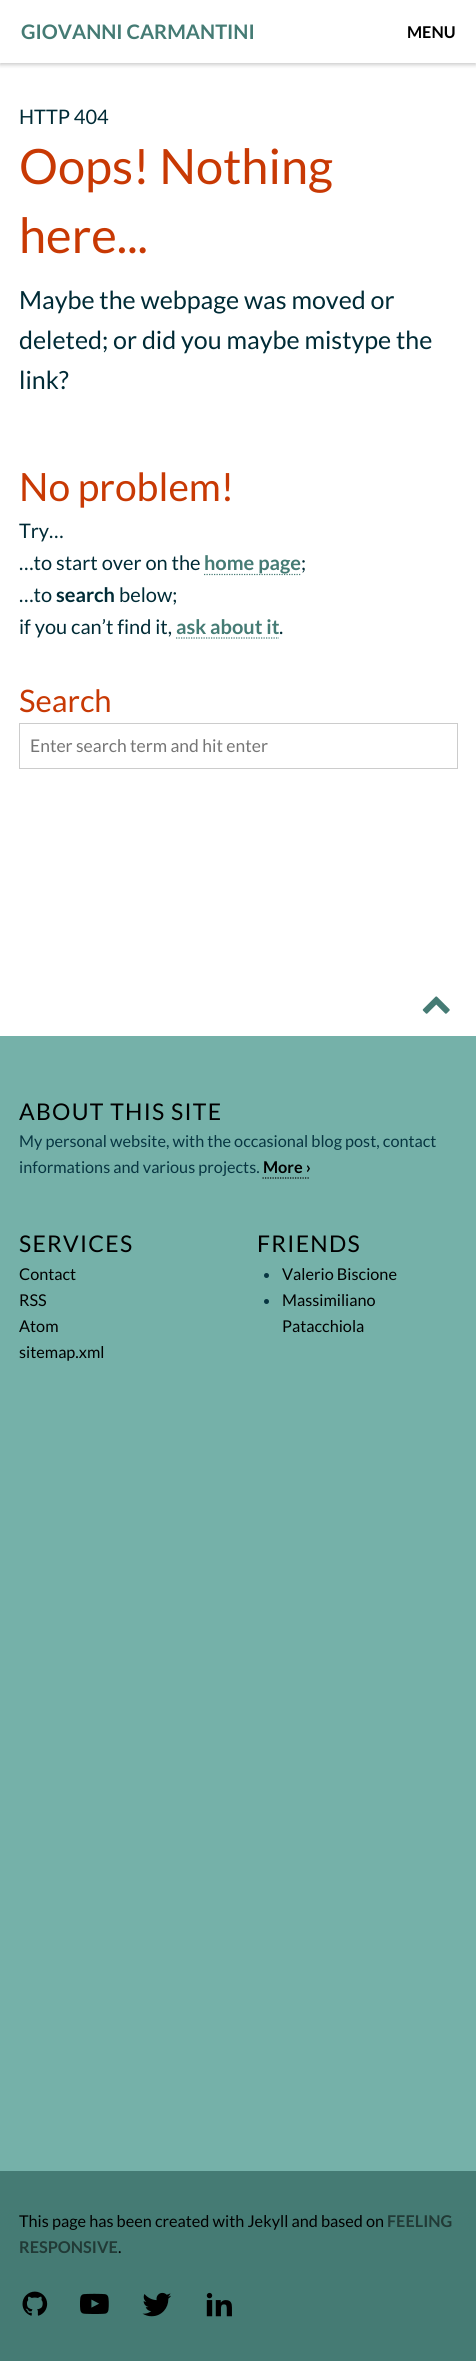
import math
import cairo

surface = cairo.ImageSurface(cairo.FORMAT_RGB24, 476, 2361)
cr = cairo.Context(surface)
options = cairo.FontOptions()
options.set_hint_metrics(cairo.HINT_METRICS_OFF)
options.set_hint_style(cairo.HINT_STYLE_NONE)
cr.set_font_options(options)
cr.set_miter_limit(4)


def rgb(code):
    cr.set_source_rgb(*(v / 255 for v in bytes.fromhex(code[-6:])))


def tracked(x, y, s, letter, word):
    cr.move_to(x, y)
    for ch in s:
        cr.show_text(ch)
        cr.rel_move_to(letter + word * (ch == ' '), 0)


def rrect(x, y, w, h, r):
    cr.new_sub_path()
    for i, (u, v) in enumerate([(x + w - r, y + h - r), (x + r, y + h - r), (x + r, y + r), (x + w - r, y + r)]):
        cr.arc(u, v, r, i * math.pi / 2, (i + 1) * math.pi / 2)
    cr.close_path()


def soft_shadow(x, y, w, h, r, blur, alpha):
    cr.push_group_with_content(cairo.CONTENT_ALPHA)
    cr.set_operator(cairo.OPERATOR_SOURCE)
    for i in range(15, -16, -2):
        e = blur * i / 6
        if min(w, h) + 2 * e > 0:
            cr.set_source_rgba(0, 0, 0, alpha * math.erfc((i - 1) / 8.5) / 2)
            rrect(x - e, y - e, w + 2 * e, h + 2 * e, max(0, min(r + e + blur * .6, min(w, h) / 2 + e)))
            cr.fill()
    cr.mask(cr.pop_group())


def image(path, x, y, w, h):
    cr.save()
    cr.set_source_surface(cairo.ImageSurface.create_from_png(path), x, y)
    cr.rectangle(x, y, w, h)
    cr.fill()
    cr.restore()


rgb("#ffffff")
cr.paint()
rgb("#000000")
soft_shadow(0, 3, 476, 62, 0, 2, 0.2)
rgb("#ffffff")
cr.rectangle(0, 0, 476, 63)
cr.fill()
cr.new_path()
cr.move_to(204, 574.5)
cr.line_to(301, 574.5)
rgb("#457b74")
cr.set_line_width(1.2)
cr.set_dash([1.25, 1.25])
cr.stroke()
cr.new_path()
cr.move_to(176, 638)
cr.line_to(279, 638)
cr.stroke()
cr.rectangle(19.5, 723.5, 438, 45)
rgb("#cccccc")
cr.set_line_width(1)
cr.set_dash([])
cr.stroke()
image("img/1.png", 422, 996, 28, 18)
rgb("#75b1a9")
cr.rectangle(0, 1036, 476, 1135)
cr.fill()
cr.new_path()
cr.move_to(262.5, 1178)
cr.line_to(310, 1178)
rgb("#000000")
cr.set_line_width(1.2)
cr.set_dash([1.25, 1.25])
cr.stroke()
rgb("#073642")
cr.arc(266.5, 1275.5, 2.5, 0, 2 * math.pi)
cr.fill()
cr.arc(266.5, 1301.5, 2.5, 0, 2 * math.pi)
cr.fill()
rgb("#457b74")
cr.rectangle(0, 2171, 476, 190)
cr.fill()
image("img/2.png", 22, 2291, 26, 25)
image("img/3.png", 80, 2293, 29, 21)
image("img/4.png", 142, 2292, 29, 25)
image("img/5.png", 206, 2292, 26, 25)
cr.select_font_face("Lato", cairo.FONT_SLANT_NORMAL, cairo.FONT_WEIGHT_BOLD)
cr.set_font_size(20)
cr.move_to(21, 39)
cr.show_text("GIOVANNI CARMANTINI")
cr.set_font_size(16.25)
rgb("#000000")
cr.move_to(407, 38)
cr.show_text("MENU")
cr.select_font_face("Lato")
cr.set_font_size(20)
rgb("#002b36")
cr.move_to(19, 124)
cr.show_text("HTTP 404")
cr.set_font_size(48.75)
rgb("#c83904")
cr.move_to(19, 184)
cr.show_text("Oops! Nothing")
cr.move_to(19, 253)
cr.show_text("here...")
cr.set_font_size(25)
rgb("#002b36")
for x, y, s in [
    (19, 309, "Maybe the webpage was moved or"),
    (19, 349, "deleted; or did you maybe mistype the"),
    (19, 389, "link?"),
]:
    cr.move_to(x, y)
    cr.show_text(s)
cr.set_font_size(39)
rgb("#c83904")
cr.move_to(19, 501)
cr.show_text("No problem!")
cr.set_font_size(20)
rgb("#002b36")
cr.move_to(19, 538)
cr.show_text("Try…")
cr.move_to(19, 570)
cr.show_text("…to start over on the")
cr.select_font_face("Lato", cairo.FONT_SLANT_NORMAL, cairo.FONT_WEIGHT_BOLD)
rgb("#457b74")
cr.move_to(204, 570)
cr.show_text("home page")
cr.select_font_face("Lato")
rgb("#002b36")
cr.move_to(301, 570)
cr.show_text(";")
cr.move_to(19, 602)
cr.show_text("…to")
cr.select_font_face("Lato", cairo.FONT_SLANT_NORMAL, cairo.FONT_WEIGHT_BOLD)
cr.move_to(56, 602)
cr.show_text("search")
cr.select_font_face("Lato")
cr.move_to(119, 602)
cr.show_text("below;")
cr.move_to(19, 634)
cr.show_text("if you can’t find it,")
cr.select_font_face("Lato", cairo.FONT_SLANT_NORMAL, cairo.FONT_WEIGHT_BOLD)
rgb("#457b74")
cr.move_to(176, 634)
cr.show_text("ask about it")
cr.select_font_face("Lato")
rgb("#002b36")
cr.move_to(279, 634)
cr.show_text(".")
cr.set_font_size(31)
rgb("#c83904")
cr.move_to(19, 712)
cr.show_text("Search")
cr.set_font_size(17.5)
rgb("#757575")
cr.move_to(30, 752)
cr.show_text("Enter search term and hit enter")
cr.set_font_size(23)
rgb("#000000")
tracked(19, 1120, "ABOUT THIS SITE", 1.25, 0)
cr.set_font_size(16.25)
rgb("#073642")
cr.move_to(19, 1147)
cr.show_text("My personal website, with the occasional blog post, contact")
cr.move_to(19, 1173)
cr.show_text("informations and various projects.")
cr.select_font_face("Lato", cairo.FONT_SLANT_NORMAL, cairo.FONT_WEIGHT_BOLD)
rgb("#000000")
cr.move_to(263, 1173)
cr.show_text("More ›")
cr.select_font_face("Lato")
cr.set_font_size(23)
tracked(19, 1252, "SERVICES", 1.25, 0)
cr.set_font_size(16.25)
for x, y, s in [
    (19, 1280, "Contact"),
    (19, 1306, "RSS"),
    (19, 1332, "Atom"),
    (19, 1358, "sitemap.xml"),
]:
    cr.move_to(x, y)
    cr.show_text(s)
cr.set_font_size(23)
tracked(257, 1252, "FRIENDS", 1.25, 0)
cr.set_font_size(16.25)
for x, y, s in [
    (282, 1280, "Valerio Biscione"),
    (282, 1306, "Massimiliano"),
    (282, 1332, "Patacchiola"),
    (19, 2227, "This page has been created with Jekyll and based on"),
]:
    cr.move_to(x, y)
    cr.show_text(s)
cr.select_font_face("Lato", cairo.FONT_SLANT_NORMAL, cairo.FONT_WEIGHT_BOLD)
rgb("#213a36")
cr.move_to(387, 2227)
cr.show_text("FEELING")
cr.move_to(19, 2253)
cr.show_text("RESPONSIVE")
cr.select_font_face("Lato")
rgb("#000000")
cr.move_to(118, 2253)
cr.show_text(".")
surface.write_to_png("page.png")
